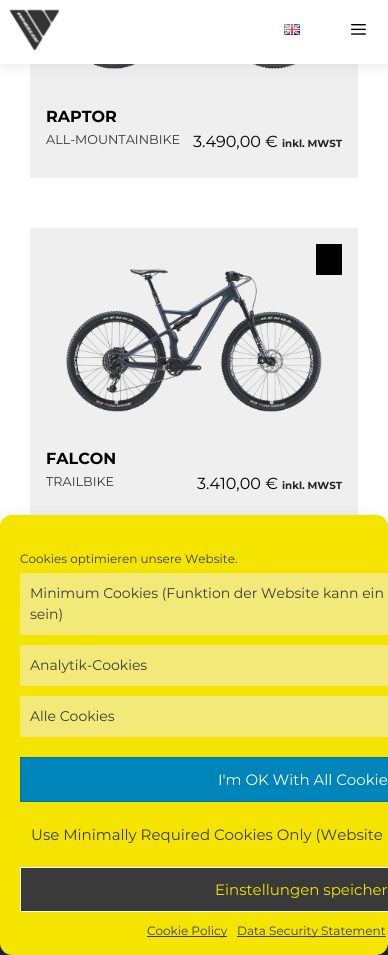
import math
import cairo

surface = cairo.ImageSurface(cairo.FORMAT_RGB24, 388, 955)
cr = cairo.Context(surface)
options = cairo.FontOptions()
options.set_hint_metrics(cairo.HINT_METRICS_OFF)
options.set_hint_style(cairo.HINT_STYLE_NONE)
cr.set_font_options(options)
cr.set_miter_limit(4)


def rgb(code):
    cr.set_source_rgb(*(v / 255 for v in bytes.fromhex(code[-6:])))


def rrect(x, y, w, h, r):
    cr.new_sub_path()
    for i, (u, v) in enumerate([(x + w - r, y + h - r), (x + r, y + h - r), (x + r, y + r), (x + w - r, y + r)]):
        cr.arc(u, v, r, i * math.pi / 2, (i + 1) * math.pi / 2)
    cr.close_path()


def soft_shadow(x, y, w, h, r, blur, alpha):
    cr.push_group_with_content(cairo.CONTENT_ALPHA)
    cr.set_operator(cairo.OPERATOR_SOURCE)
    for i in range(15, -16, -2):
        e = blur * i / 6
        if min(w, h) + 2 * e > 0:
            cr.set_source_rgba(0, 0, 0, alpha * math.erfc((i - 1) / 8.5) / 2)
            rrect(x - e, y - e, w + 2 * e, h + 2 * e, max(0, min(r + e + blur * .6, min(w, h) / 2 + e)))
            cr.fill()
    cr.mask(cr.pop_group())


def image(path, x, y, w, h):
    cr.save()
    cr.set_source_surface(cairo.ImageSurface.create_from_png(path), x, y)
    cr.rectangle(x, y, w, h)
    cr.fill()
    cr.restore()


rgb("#ffffff")
cr.paint()
rgb("#efefef")
cr.rectangle(30, 64, 328, 114)
cr.fill()
image("img/4.png", 92, 64, 203, 5)
rgb("#808080")
soft_shadow(0, 0, 388, 64, 0, 8, 0.2)
rgb("#ffffff")
cr.rectangle(0, 0, 388, 64)
cr.fill()
image("img/1.png", 10, 9, 49, 41)
image("img/2.png", 284, 24, 16, 11)
image("img/3.png", 351, 24, 15, 11)
rgb("#efefef")
cr.rectangle(30, 228, 328, 287)
cr.fill()
image("img/5.png", 66, 269, 256, 143)
rgb("#000000")
cr.rectangle(316, 244, 26, 31)
cr.fill()
rgb("#2a2a2a")
cr.rectangle(0, 943, 388, 12)
cr.fill()
rgb("#000000")
soft_shadow(0, 521, 388, 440, 12, 3, 0.23)
soft_shadow(0, 525, 388, 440, 12, 10, 0.19)
rgb("#f4e400")
rrect(0, 515, 388, 440, 12)
cr.fill()
for x, y, w, h, color in [
    (20, 573, 368, 62, "#f2ea78"),
    (20, 645, 368, 41, "#f2ea78"),
    (20, 696, 368, 41, "#f2ea78"),
]:
    rgb(color)
    cr.rectangle(x, y, w, h)
    cr.fill()
rgb("#0085ba")
cr.rectangle(20.5, 757.5, 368, 44)
cr.fill_preserve()
rgb("#0073aa")
cr.set_line_width(1)
cr.stroke()
rgb("#3a3a3a")
cr.rectangle(20.5, 867.5, 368, 44)
cr.fill_preserve()
rgb("#ffffff")
cr.stroke()
rgb("#3a3a3a")
cr.rectangle(147, 936, 80, 1)
cr.fill()
cr.rectangle(237, 936, 149, 1)
cr.fill()
cr.select_font_face("Montserrat", cairo.FONT_SLANT_NORMAL, cairo.FONT_WEIGHT_BOLD)
cr.set_font_size(16)
rgb("#000000")
cr.move_to(46, 122)
cr.show_text("RAPTOR")
cr.select_font_face("Montserrat")
cr.set_font_size(12.75)
rgb("#333333")
cr.move_to(46, 144)
cr.show_text("ALL-MOUNTAINBIKE")
cr.set_font_size(16)
rgb("#000000")
cr.move_to(193, 147)
cr.show_text("3.490,00 €")
cr.select_font_face("Montserrat", cairo.FONT_SLANT_NORMAL, cairo.FONT_WEIGHT_BOLD)
cr.set_font_size(10.25)
rgb("#222222")
cr.move_to(282, 147)
cr.show_text("inkl. MWST")
cr.set_font_size(16)
rgb("#000000")
cr.move_to(46, 464)
cr.show_text("FALCON")
cr.select_font_face("Montserrat")
cr.set_font_size(12.75)
rgb("#333333")
cr.move_to(46, 486)
cr.show_text("TRAILBIKE")
cr.set_font_size(16)
rgb("#000000")
cr.move_to(197, 489)
cr.show_text("3.410,00 €")
cr.select_font_face("Montserrat", cairo.FONT_SLANT_NORMAL, cairo.FONT_WEIGHT_BOLD)
cr.set_font_size(10.25)
rgb("#222222")
cr.move_to(282, 489)
cr.show_text("inkl. MWST")
cr.select_font_face("Montserrat")
cr.set_font_size(12)
rgb("#3a3a3a")
cr.move_to(20, 563)
cr.show_text("Cookies optimieren unsere Website.")
cr.set_font_size(14)
for x, y, s in [
    (30, 598, "Minimum Cookies (Funktion der Website kann ein"),
    (30, 619, "sein)"),
    (30, 670, "Analytik-Cookies"),
    (30, 721, "Alle Cookies"),
]:
    cr.move_to(x, y)
    cr.show_text(s)
cr.set_font_size(15)
rgb("#ffffff")
cr.move_to(218, 785)
cr.show_text("I'm OK With All Cookie")
rgb("#3a3a3a")
cr.move_to(31, 840)
cr.show_text("Use Minimally Required Cookies Only (Website")
rgb("#f4e400")
cr.move_to(215, 895)
cr.show_text("Einstellungen speicher")
cr.set_font_size(12)
rgb("#3a3a3a")
cr.move_to(147, 935)
cr.show_text("Cookie Policy")
cr.move_to(237, 935)
cr.show_text("Data Security Statement")
surface.write_to_png("page.png")
